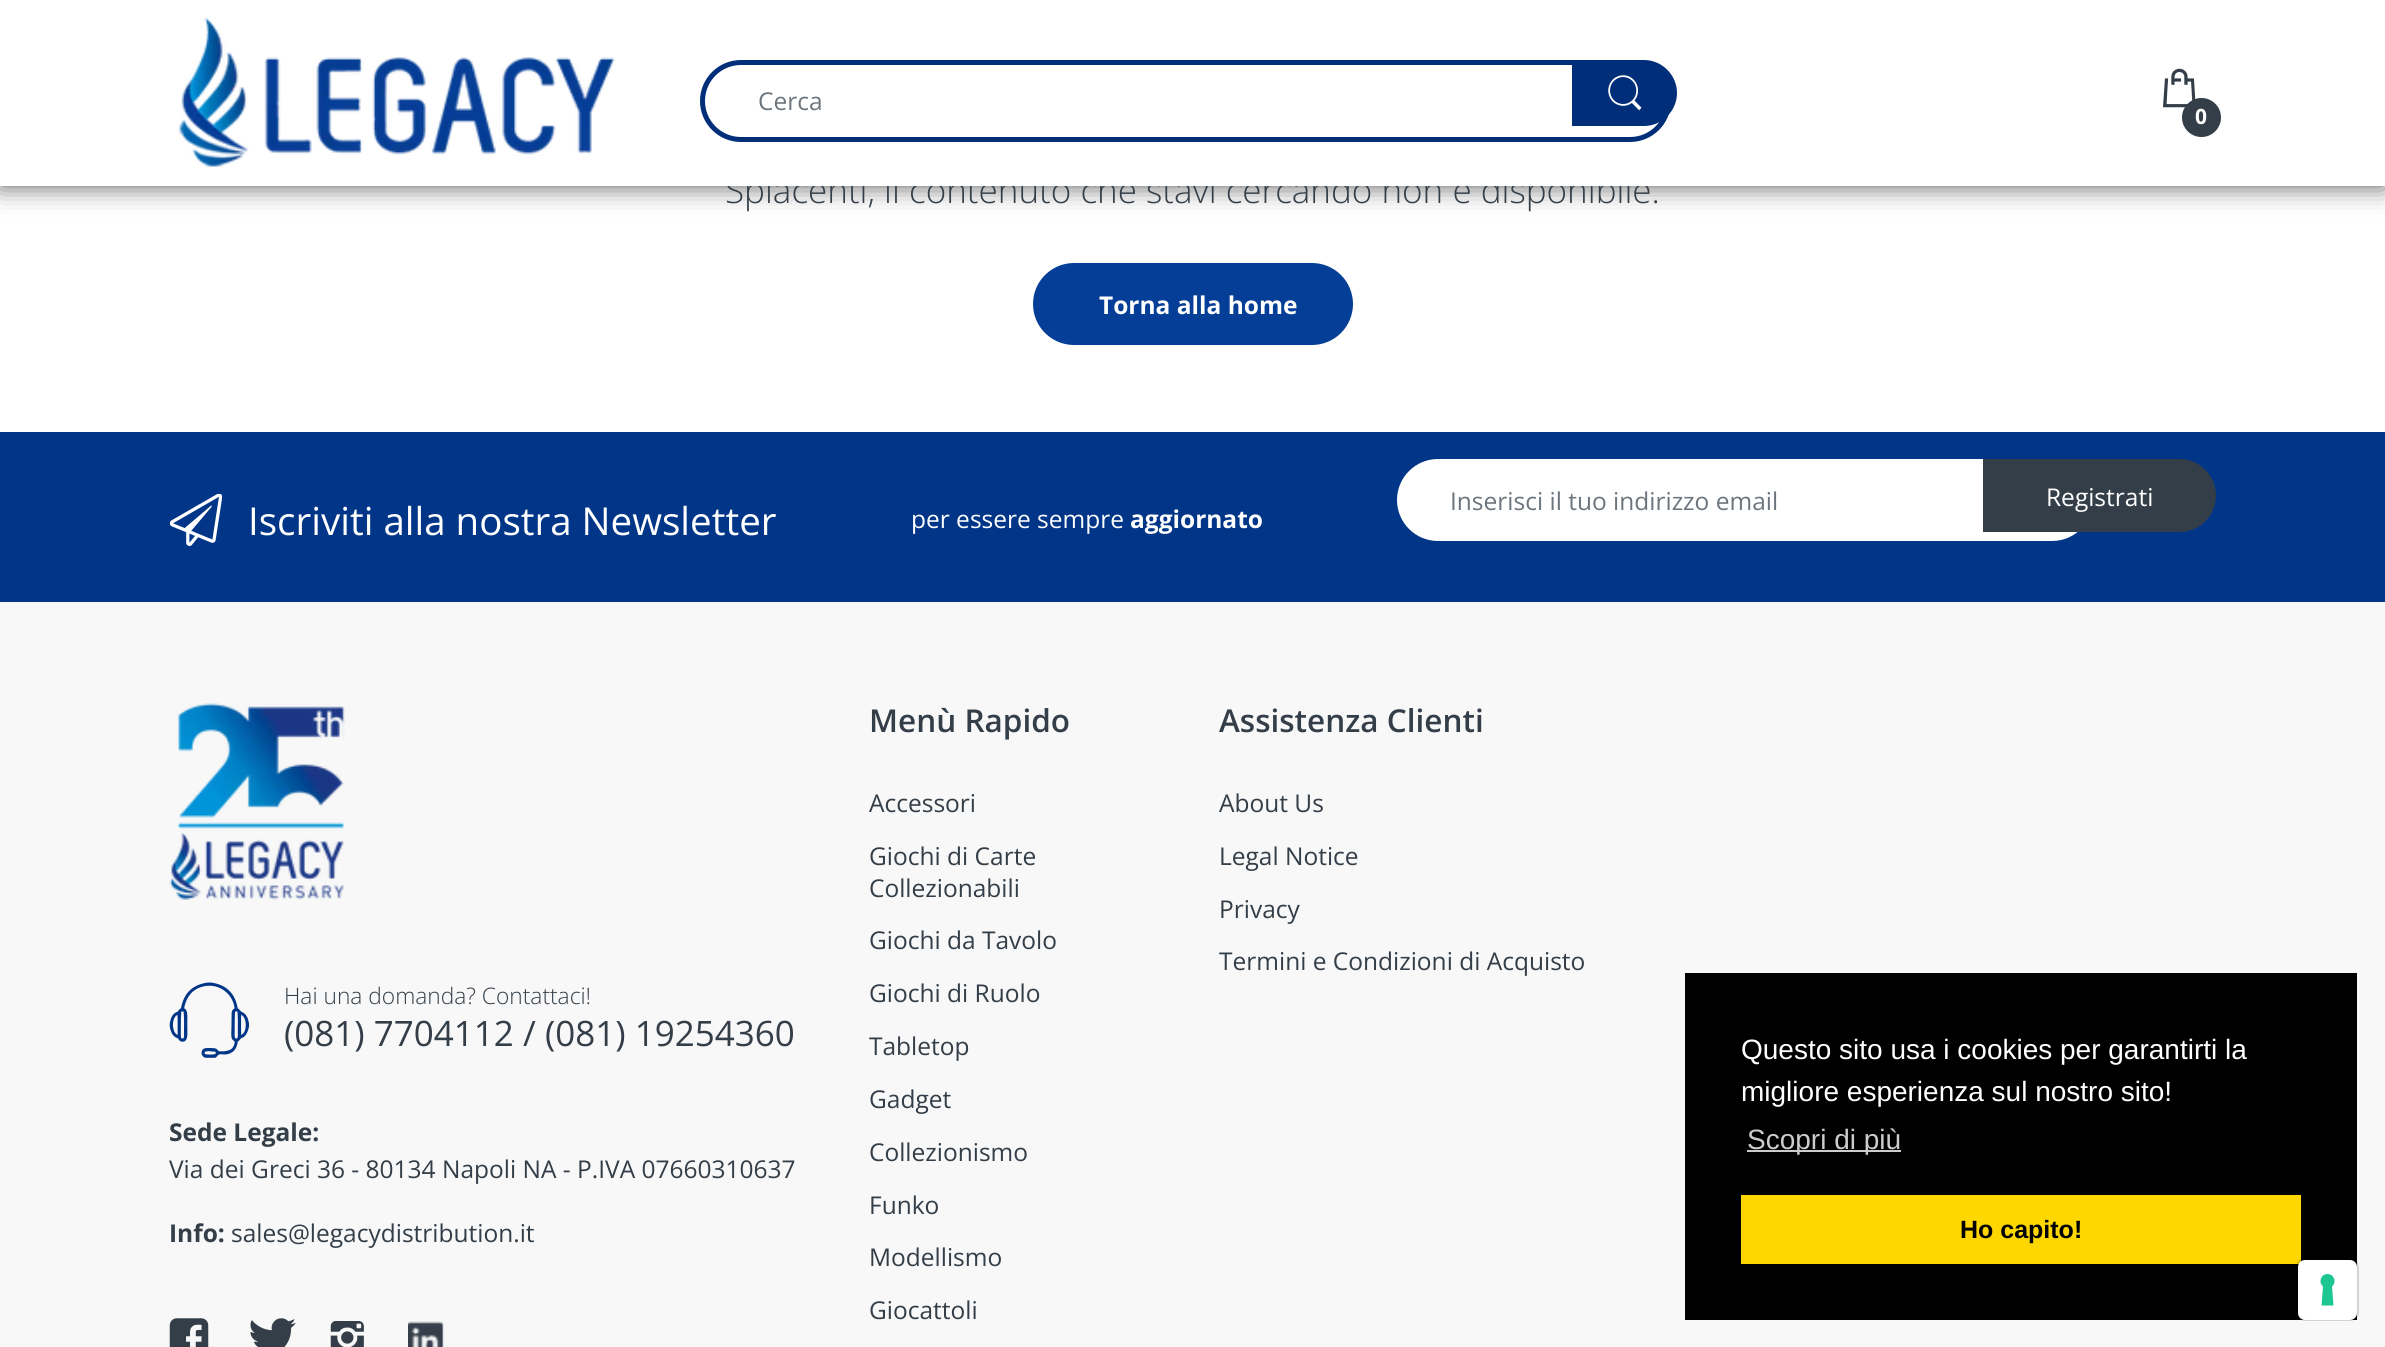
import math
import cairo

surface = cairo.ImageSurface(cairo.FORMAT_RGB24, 2385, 1347)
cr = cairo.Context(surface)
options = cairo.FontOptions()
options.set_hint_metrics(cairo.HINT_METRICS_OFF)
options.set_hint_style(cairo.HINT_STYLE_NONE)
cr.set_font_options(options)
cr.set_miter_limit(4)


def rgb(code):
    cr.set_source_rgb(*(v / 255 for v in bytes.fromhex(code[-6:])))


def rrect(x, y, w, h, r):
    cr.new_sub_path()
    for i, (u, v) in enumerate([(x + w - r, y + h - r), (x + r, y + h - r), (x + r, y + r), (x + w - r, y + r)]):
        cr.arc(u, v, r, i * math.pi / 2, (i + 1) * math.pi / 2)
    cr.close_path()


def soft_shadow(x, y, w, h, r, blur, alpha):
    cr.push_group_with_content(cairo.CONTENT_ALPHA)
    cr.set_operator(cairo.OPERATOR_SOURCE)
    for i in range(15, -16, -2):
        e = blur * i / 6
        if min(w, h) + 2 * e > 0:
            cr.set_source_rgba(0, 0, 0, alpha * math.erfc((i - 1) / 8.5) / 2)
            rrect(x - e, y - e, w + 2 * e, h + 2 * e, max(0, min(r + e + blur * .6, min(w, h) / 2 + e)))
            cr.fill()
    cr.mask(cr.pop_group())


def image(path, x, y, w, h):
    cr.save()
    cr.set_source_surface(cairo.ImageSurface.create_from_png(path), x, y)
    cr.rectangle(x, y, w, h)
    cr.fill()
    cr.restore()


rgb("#ffffff")
cr.paint()
rgb("#000000")
soft_shadow(0, 0, 2385, 186, 0, 13, 0.65)
rgb("#053e96")
rrect(1034, 264, 318, 80, 40)
cr.fill_preserve()
cr.stroke()
rgb("#003587")
cr.rectangle(0, 432, 2385, 170)
cr.fill()
rgb("#ffffff")
rrect(1397, 459, 696, 82, 41)
cr.fill()
rgb("#333e48")
cr.new_path()
cr.move_to(1984, 460)
cr.line_to(2179.5, 460)
cr.curve_to(2199, 460, 2215, 476, 2215, 495.5)
cr.curve_to(2215, 515, 2199, 531, 2179.5, 531)
cr.line_to(1984, 531)
cr.close_path()
cr.fill_preserve()
cr.stroke()
image("img/4.png", 170, 494, 52, 52)
rgb("#f8f8f8")
cr.rectangle(0, 602, 2385, 745)
cr.fill()
image("img/5.png", 169, 703, 176, 197)
image("img/6.png", 169, 982, 80, 76)
image("img/7.png", 169, 1318, 40, 29)
image("img/8.png", 250, 1318, 46, 29)
image("img/9.png", 330, 1321, 34, 26)
image("img/10.png", 408, 1321, 36, 26)
for x, y, w, h, color in [
    (1685, 973, 672, 347, "#000000"),
    (1747, 1150, 154, 2, "#cccccc"),
    (1741, 1195, 560, 69, "#fed700"),
]:
    rgb(color)
    cr.rectangle(x, y, w, h)
    cr.fill()
rrect(2297, 1259, 61, 61, 8)
cr.set_source_rgba(0, 0, 0, 0.15)
cr.stroke()
rgb("#ffffff")
rrect(2298, 1260, 59, 60, 7)
cr.fill()
rgb("#1cc691")
cr.set_fill_rule(cairo.FILL_RULE_EVEN_ODD)
cr.new_path()
cr.move_to(2327.5, 1274)
cr.curve_to(2334, 1274, 2337, 1282, 2332, 1286.5)
cr.line_to(2333.5, 1305.5)
cr.line_to(2321.5, 1305.5)
cr.line_to(2323, 1286.5)
cr.curve_to(2318, 1282, 2321, 1274, 2327.5, 1274)
cr.close_path()
cr.fill()
cr.select_font_face("Open Sans Light")
cr.set_font_size(35)
rgb("#333e48")
cr.move_to(725, 203)
cr.show_text("Spiacenti, il contenuto che stavi cercando non è disponibile.")
rgb("#ffffff")
cr.rectangle(0, 0, 2385, 186)
cr.fill()
rrect(702.5, 62.5, 966, 77, 38.5)
rgb("#002e79")
cr.set_line_width(5)
cr.stroke()
cr.new_path()
cr.move_to(1572, 60)
cr.line_to(1644, 60)
cr.curve_to(1662, 60, 1677, 75, 1677, 93)
cr.curve_to(1677, 111, 1662, 126, 1644, 126)
cr.line_to(1572, 126)
cr.close_path()
cr.fill()
image("img/2.png", 1608, 75, 34, 36)
image("img/3.png", 2163, 68, 33, 40)
rgb("#333e48")
cr.arc(2201.5, 117.5, 19.5, 0, 2 * math.pi)
cr.fill()
cr.select_font_face("Open Sans", cairo.FONT_SLANT_NORMAL, cairo.FONT_WEIGHT_BOLD)
cr.set_font_size(21)
rgb("#ffffff")
cr.move_to(2195, 124)
cr.show_text("0")
cr.select_font_face("Open Sans")
cr.set_font_size(24.5)
rgb("#6c757d")
cr.move_to(758, 110)
cr.show_text("Cerca")
image("img/1.png", 178, 17, 437, 150)
cr.select_font_face("Open Sans", cairo.FONT_SLANT_NORMAL, cairo.FONT_WEIGHT_BOLD)
rgb("#ffffff")
cr.move_to(1099, 314)
cr.show_text("Torna alla home")
cr.select_font_face("Open Sans")
rgb("#6c757d")
cr.move_to(1450, 510)
cr.show_text("Inserisci il tuo indirizzo email")
rgb("#ffffff")
cr.move_to(2046, 506)
cr.show_text("Registrati")
cr.set_font_size(38.5)
cr.move_to(248, 535)
cr.show_text("Iscriviti alla nostra Newsletter")
cr.set_font_size(24.5)
cr.move_to(911, 528)
cr.show_text("per essere sempre")
cr.select_font_face("Open Sans", cairo.FONT_SLANT_NORMAL, cairo.FONT_WEIGHT_BOLD)
cr.move_to(1130, 528)
cr.show_text("aggiornato")
cr.select_font_face("Open Sans SemiBold")
cr.set_font_size(31.5)
rgb("#333e48")
cr.move_to(869, 732)
cr.show_text("Menù Rapido")
cr.select_font_face("Open Sans")
cr.set_font_size(24.5)
for x, y, s in [
    (869, 812, "Accessori"),
    (869, 865, "Giochi di Carte"),
    (869, 897, "Collezionabili"),
    (869, 949, "Giochi da Tavolo"),
    (869, 1002, "Giochi di Ruolo"),
    (869, 1055, "Tabletop"),
    (869, 1108, "Gadget"),
    (869, 1161, "Collezionismo"),
    (869, 1214, "Funko"),
    (869, 1266, "Modellismo"),
    (869, 1319, "Giocattoli"),
]:
    cr.move_to(x, y)
    cr.show_text(s)
cr.select_font_face("Open Sans SemiBold")
cr.set_font_size(31.5)
cr.move_to(1219, 732)
cr.show_text("Assistenza Clienti")
cr.select_font_face("Open Sans")
cr.set_font_size(24.5)
for x, y, s in [
    (1219, 812, "About Us"),
    (1219, 865, "Legal Notice"),
    (1219, 918, "Privacy"),
    (1219, 970, "Termini e Condizioni di Acquisto"),
]:
    cr.move_to(x, y)
    cr.show_text(s)
cr.select_font_face("Open Sans Light")
cr.set_font_size(22.75)
cr.move_to(284, 1004)
cr.show_text("Hai una domanda? Contattaci!")
cr.select_font_face("Open Sans")
cr.set_font_size(35)
cr.move_to(284, 1046)
cr.show_text("(081) 7704112 / (081) 19254360")
cr.select_font_face("Open Sans", cairo.FONT_SLANT_NORMAL, cairo.FONT_WEIGHT_BOLD)
cr.set_font_size(24.5)
cr.move_to(169, 1141)
cr.show_text("Sede Legale:")
cr.select_font_face("Open Sans")
cr.move_to(169, 1178)
cr.show_text("Via dei Greci 36 - 80134 Napoli NA - P.IVA 07660310637")
cr.select_font_face("Open Sans", cairo.FONT_SLANT_NORMAL, cairo.FONT_WEIGHT_BOLD)
cr.move_to(169, 1242)
cr.show_text("Info:")
cr.select_font_face("Open Sans")
cr.move_to(231, 1242)
cr.show_text("sales@legacydistribution.it")
cr.select_font_face("Liberation Sans")
cr.set_font_size(28)
rgb("#ffffff")
cr.move_to(1741, 1059)
cr.show_text("Questo sito usa i cookies per garantirti la")
cr.move_to(1741, 1101)
cr.show_text("migliore esperienza sul nostro sito!")
rgb("#cccccc")
cr.move_to(1747, 1149)
cr.show_text("Scopri di più")
cr.select_font_face("Liberation Sans", cairo.FONT_SLANT_NORMAL, cairo.FONT_WEIGHT_BOLD)
cr.set_font_size(25)
rgb("#000000")
cr.move_to(1960, 1238)
cr.show_text("Ho capito!")
surface.write_to_png("page.png")
